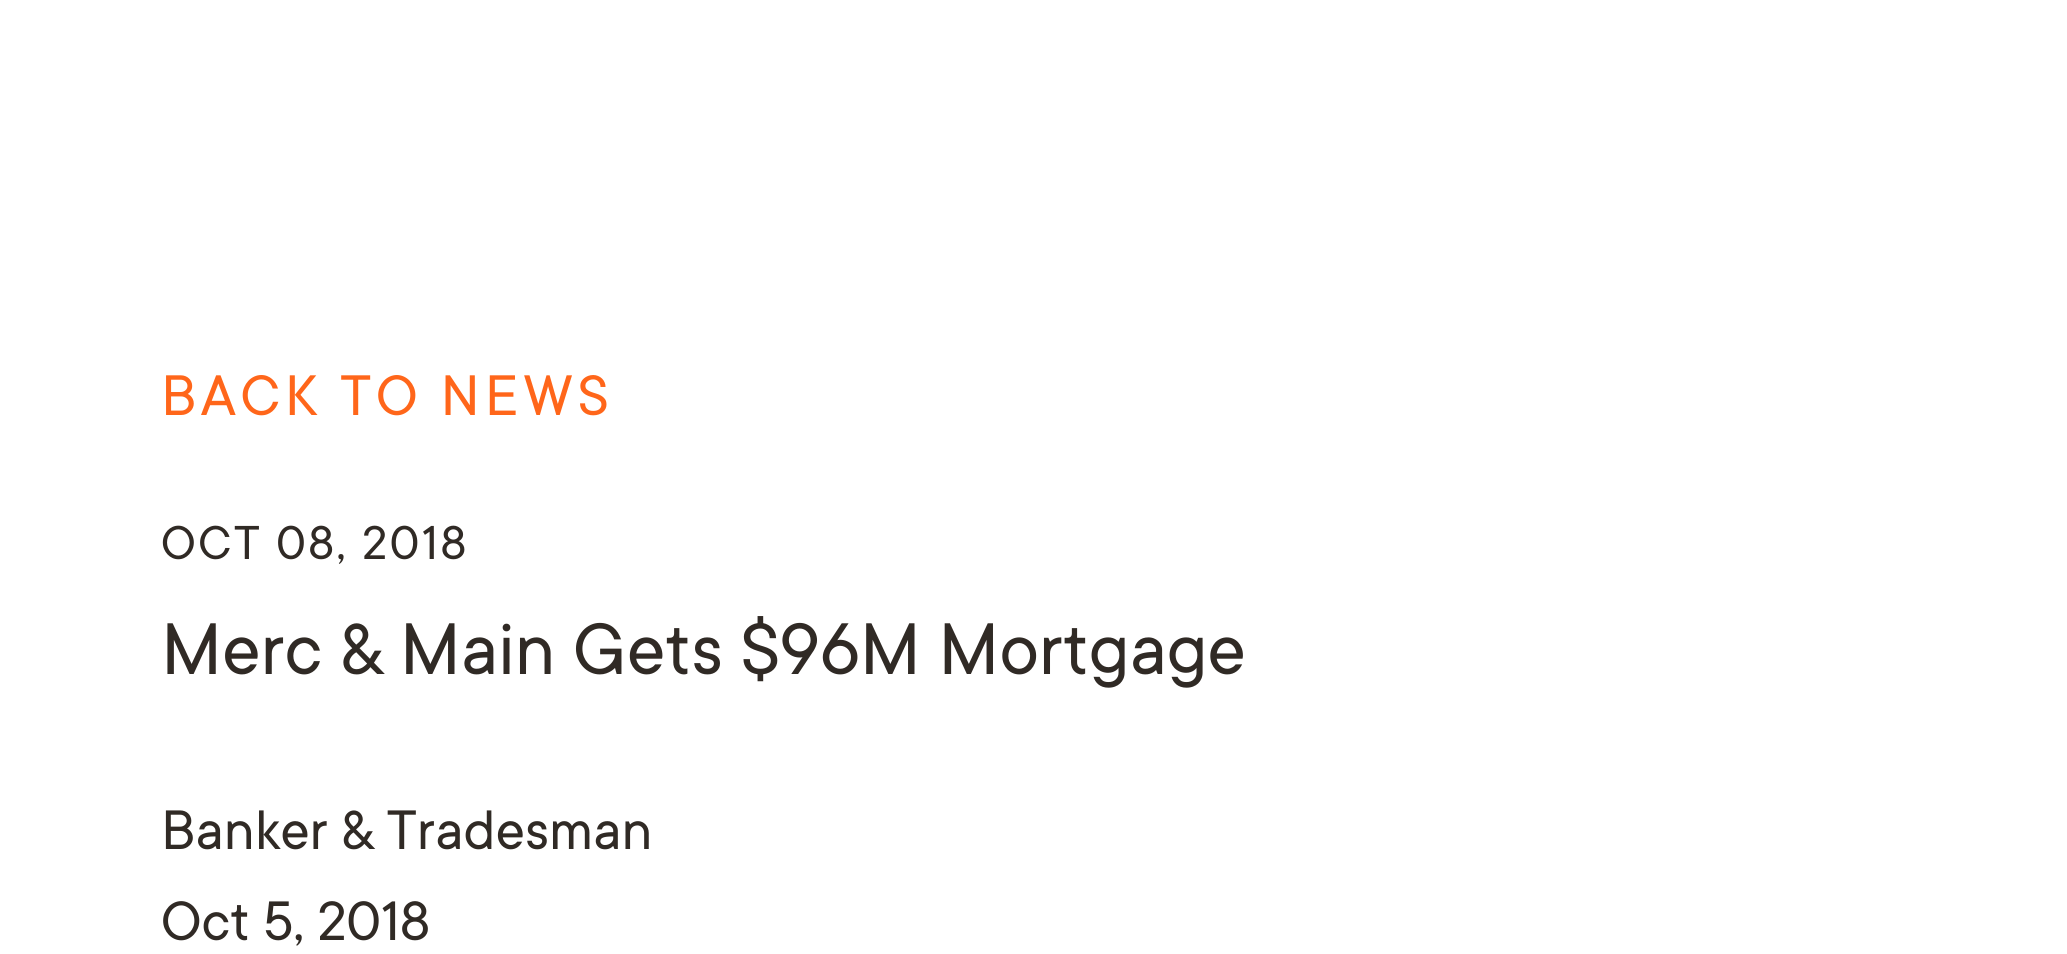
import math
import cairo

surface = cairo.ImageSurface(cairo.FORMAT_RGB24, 2067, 954)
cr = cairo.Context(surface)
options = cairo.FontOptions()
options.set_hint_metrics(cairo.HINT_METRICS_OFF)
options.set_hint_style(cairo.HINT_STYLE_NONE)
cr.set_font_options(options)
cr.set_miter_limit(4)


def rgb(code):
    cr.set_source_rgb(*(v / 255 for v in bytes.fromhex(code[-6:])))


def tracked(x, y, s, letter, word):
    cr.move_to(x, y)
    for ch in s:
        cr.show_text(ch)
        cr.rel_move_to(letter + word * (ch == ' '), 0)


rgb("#ffffff")
cr.paint()
cr.select_font_face("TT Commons")
cr.set_font_size(63)
rgb("#ff661a")
tracked(161, 415, "BACK TO NEWS", 4.75, 0)
cr.set_font_size(52.5)
rgb("#302a25")
tracked(161, 559, "OCT 08, 2018", 2.6, 0)
cr.set_font_size(80.5)
cr.move_to(161, 674)
cr.show_text("Merc & Main Gets $96M Mortgage")
cr.set_font_size(61.25)
cr.move_to(161, 849)
cr.show_text("Banker & Tradesman")
cr.move_to(161, 940)
cr.show_text("Oct 5, 2018")
surface.write_to_png("page.png")
